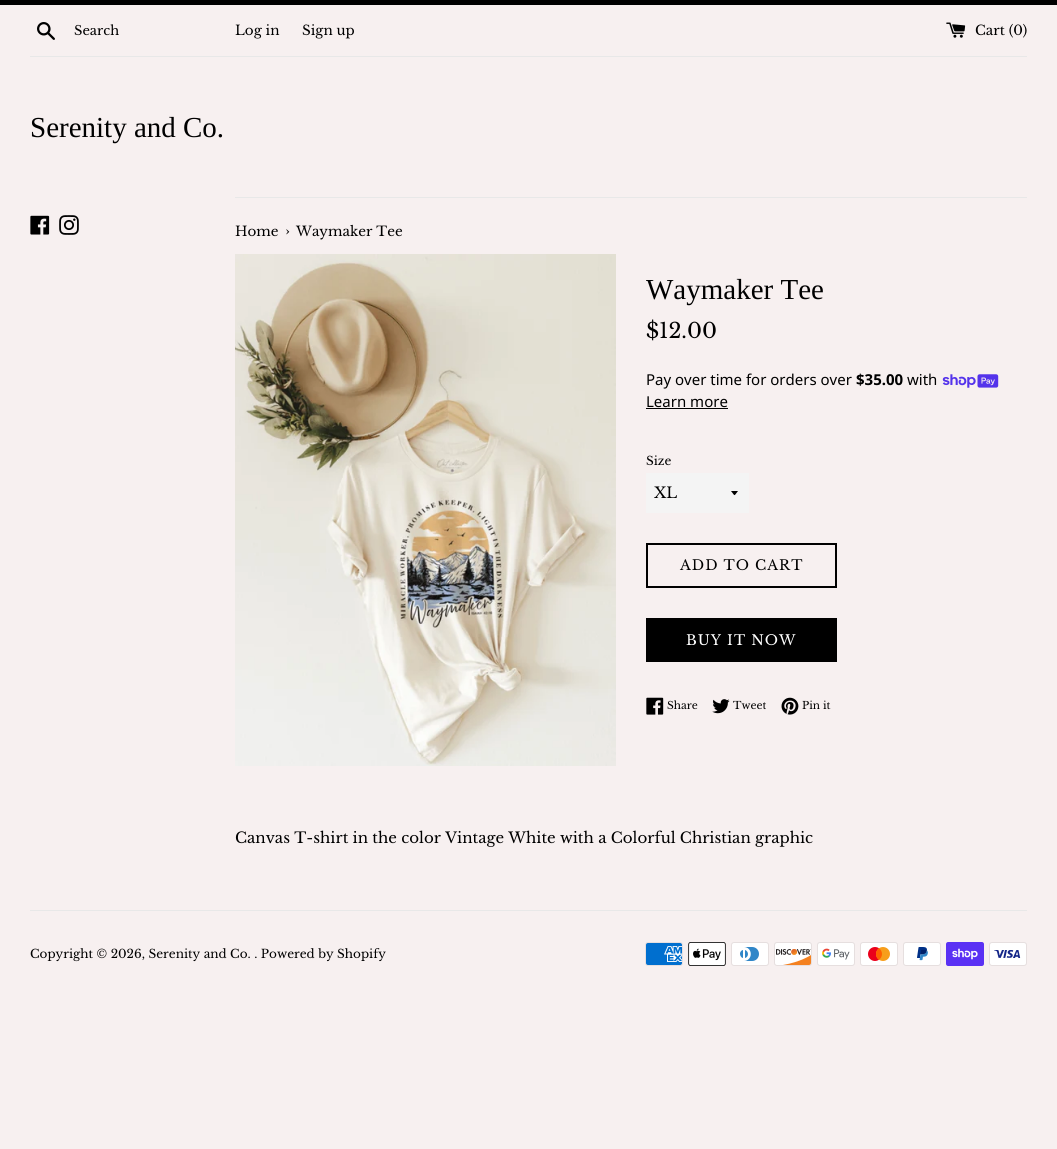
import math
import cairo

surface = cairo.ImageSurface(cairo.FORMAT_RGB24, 1057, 1149)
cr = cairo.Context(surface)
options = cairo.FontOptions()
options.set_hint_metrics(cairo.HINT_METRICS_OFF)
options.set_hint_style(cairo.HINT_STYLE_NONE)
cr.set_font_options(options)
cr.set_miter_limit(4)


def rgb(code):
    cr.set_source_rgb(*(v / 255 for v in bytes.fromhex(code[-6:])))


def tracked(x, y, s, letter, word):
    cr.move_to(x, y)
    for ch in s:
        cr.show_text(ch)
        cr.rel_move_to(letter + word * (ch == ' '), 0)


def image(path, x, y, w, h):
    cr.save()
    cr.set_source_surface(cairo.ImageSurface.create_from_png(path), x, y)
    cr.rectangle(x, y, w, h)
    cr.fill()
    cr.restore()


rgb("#f7f0f0")
cr.paint()
rgb("#000000")
cr.rectangle(0, 0, 1057, 5)
cr.fill()
image("img/1.png", 37, 22, 18, 18)
image("img/2.png", 946, 22, 20, 16)
rgb("#e8e8e8")
cr.rectangle(30, 56, 997, 1)
cr.fill()
image("img/3.png", 30, 215, 20, 20)
image("img/4.png", 59, 215, 20, 20)
cr.rectangle(235, 197, 792, 1)
cr.fill()
image("img/5.png", 235, 254, 381, 512)
image("img/6.png", 942, 374, 57, 14)
rgb("#000000")
cr.rectangle(646, 408, 82, 1)
cr.fill()
rgb("#f4f4f4")
cr.rectangle(646, 473, 103, 40)
cr.fill()
rgb("#000000")
cr.new_path()
cr.move_to(731, 491)
cr.curve_to(735.5, 496.5, 733.5, 496.5, 738, 491)
cr.close_path()
cr.fill()
cr.rectangle(647, 544, 189, 43)
cr.stroke()
cr.rectangle(646, 618, 191, 44)
cr.fill()
image("img/7.png", 646, 697, 18, 18)
image("img/8.png", 712, 699, 18, 15)
image("img/9.png", 781, 697, 18, 18)
rgb("#e8e8e8")
cr.rectangle(30, 910, 997, 1)
cr.fill()
image("img/10.png", 645, 942, 38, 24)
image("img/11.png", 688, 942, 38, 24)
image("img/12.png", 731, 942, 38, 24)
image("img/13.png", 774, 942, 38, 24)
image("img/14.png", 817, 942, 38, 24)
image("img/15.png", 860, 942, 38, 24)
image("img/16.png", 903, 942, 38, 24)
image("img/17.png", 946, 942, 38, 24)
image("img/18.png", 989, 942, 38, 24)
cr.select_font_face("Libre Baskerville")
cr.set_font_size(13)
rgb("#000000")
cr.move_to(74, 35)
cr.show_text("Search")
cr.set_font_size(13.5)
for x, y, s in [
    (235, 35, "Log in"),
    (302, 35, "Sign up"),
    (975, 35, "Cart (0)"),
]:
    cr.move_to(x, y)
    cr.show_text(s)
cr.select_font_face("Liberation Serif")
cr.set_font_size(29)
cr.move_to(30, 137)
cr.show_text("Serenity and Co.")
cr.select_font_face("Libre Baskerville")
cr.set_font_size(13.5)
cr.move_to(235, 236)
cr.show_text("Home")
cr.set_font_size(16)
cr.move_to(285, 236)
cr.show_text("›")
cr.set_font_size(13.5)
cr.move_to(296, 236)
cr.show_text("Waymaker Tee")
cr.select_font_face("Liberation Serif")
cr.set_font_size(29)
cr.move_to(646, 299)
cr.show_text("Waymaker Tee")
cr.select_font_face("Libre Baskerville")
cr.set_font_size(21)
cr.move_to(646, 338)
cr.show_text("$12.00")
cr.select_font_face("Noto Sans")
cr.set_font_size(15)
cr.move_to(646, 385)
cr.show_text("Pay over time for orders over")
cr.select_font_face("Noto Sans", cairo.FONT_SLANT_NORMAL, cairo.FONT_WEIGHT_BOLD)
cr.move_to(856, 385)
cr.show_text("$35.00")
cr.select_font_face("Noto Sans")
cr.move_to(907, 385)
cr.show_text("with")
cr.move_to(646, 407)
cr.show_text("Learn more")
cr.select_font_face("Libre Baskerville")
cr.set_font_size(12)
cr.move_to(646, 465)
cr.show_text("Size")
cr.set_font_size(15)
cr.move_to(654, 498)
cr.show_text("XL")
cr.set_font_size(14)
tracked(680, 570, "ADD TO CART", 1, 0)
rgb("#ffffff")
tracked(686, 645, "BUY IT NOW", 1, 0)
cr.set_font_size(10.5)
rgb("#000000")
for x, y, s in [
    (667, 709, "Share"),
    (733, 709, "Tweet"),
    (802, 709, "Pin it"),
]:
    cr.move_to(x, y)
    cr.show_text(s)
cr.set_font_size(15)
cr.move_to(235, 843)
cr.show_text("Canvas T-shirt in the color Vintage White with a Colorful Christian graphic")
cr.set_font_size(12)
cr.move_to(30, 958)
cr.show_text("Copyright © 2026, Serenity and Co. . Powered by Shopify")
surface.write_to_png("page.png")
